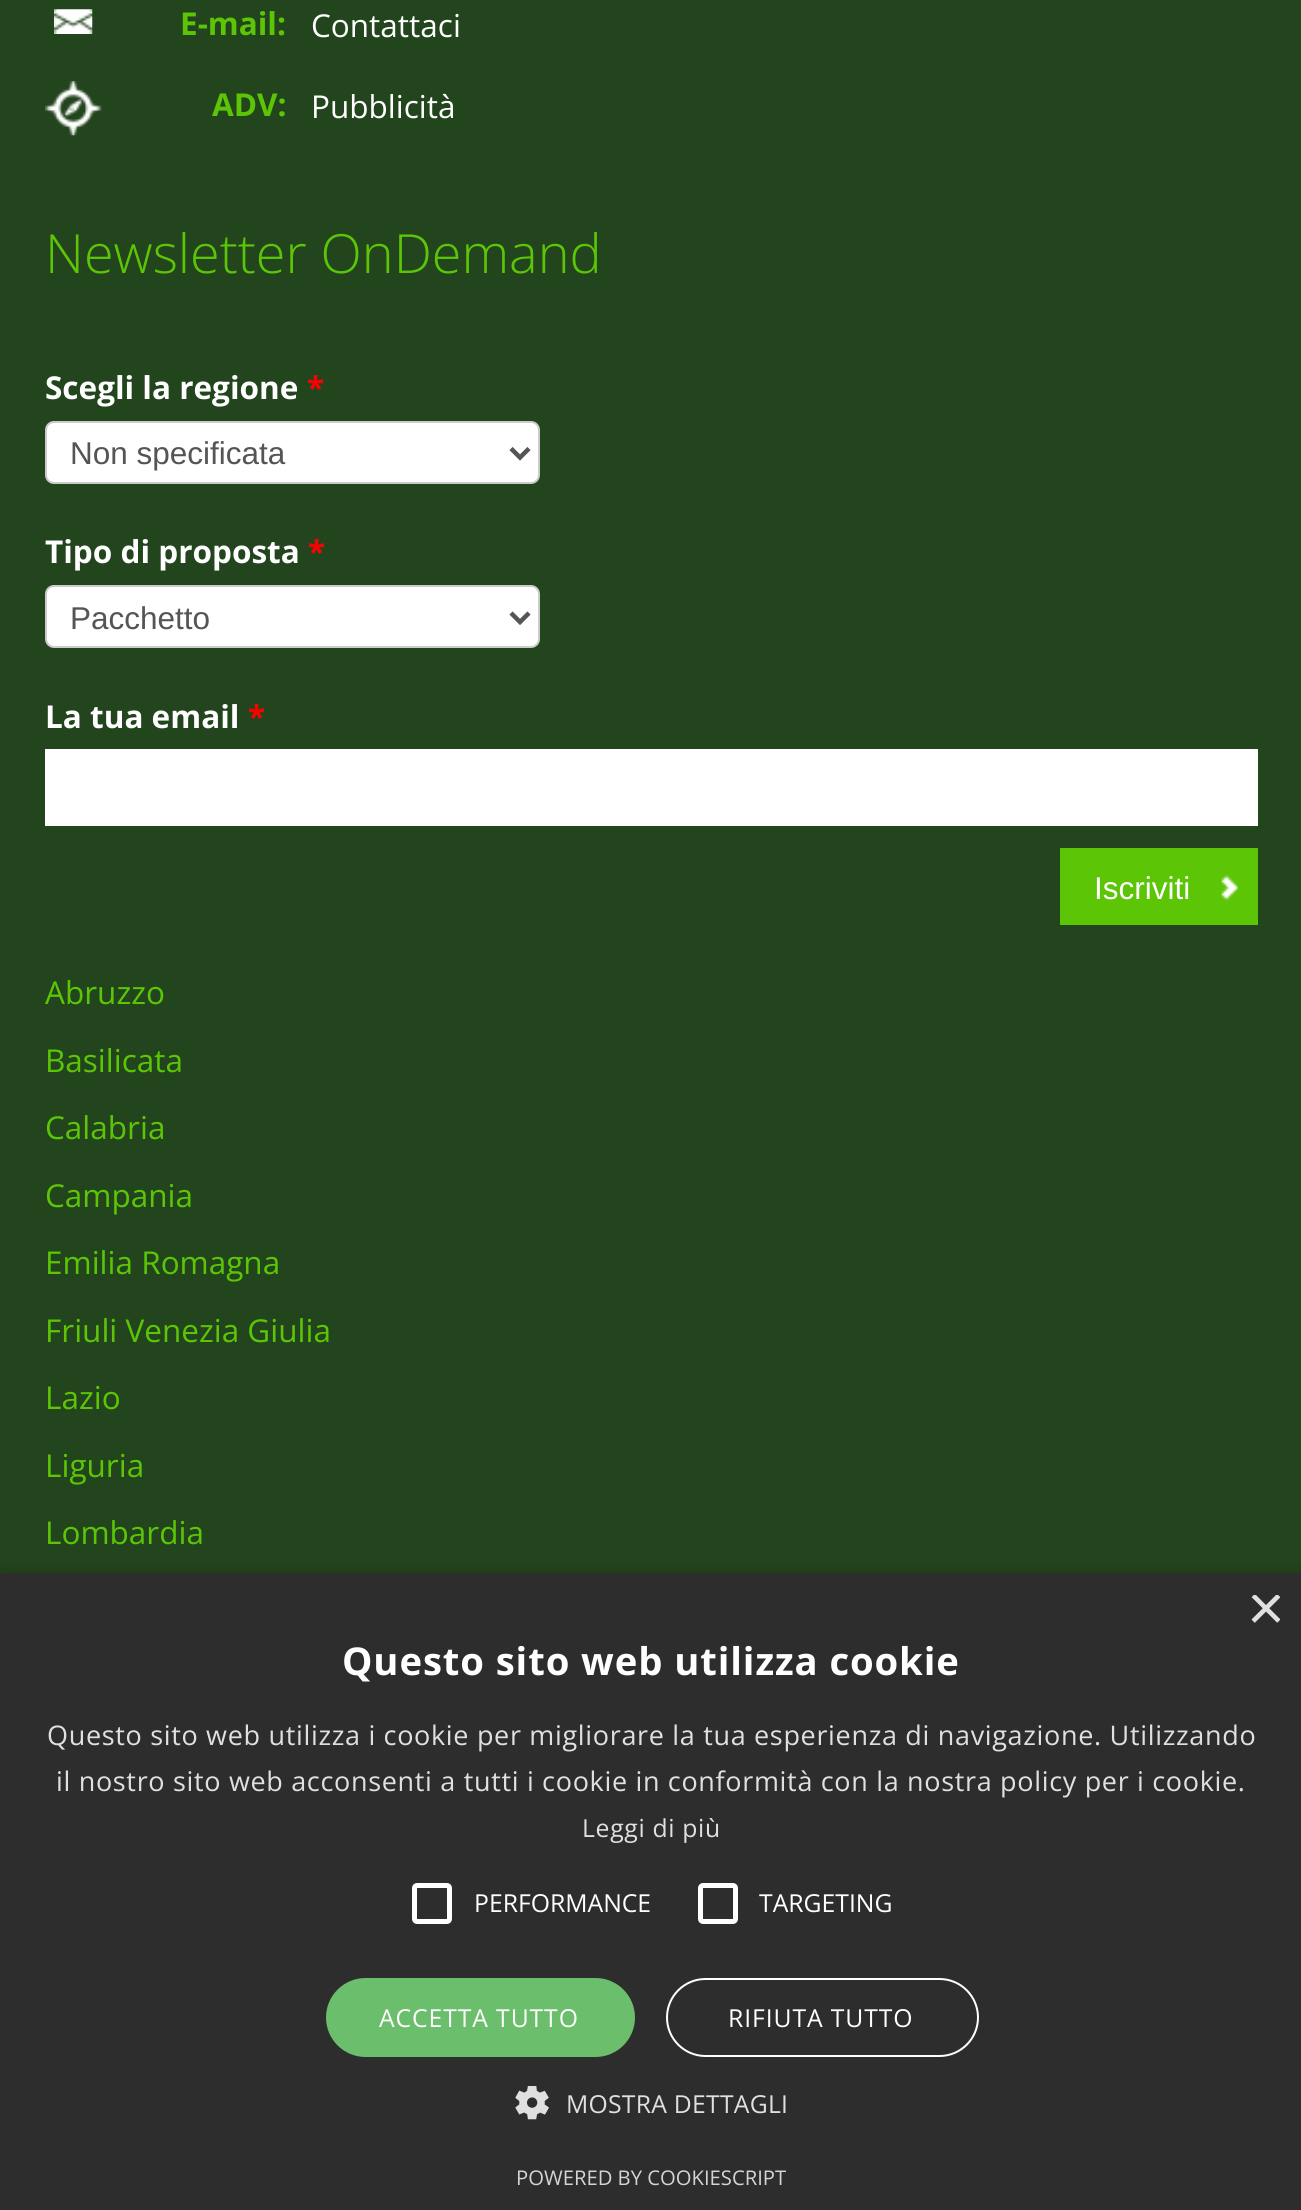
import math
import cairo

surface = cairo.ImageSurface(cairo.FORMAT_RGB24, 1301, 2210)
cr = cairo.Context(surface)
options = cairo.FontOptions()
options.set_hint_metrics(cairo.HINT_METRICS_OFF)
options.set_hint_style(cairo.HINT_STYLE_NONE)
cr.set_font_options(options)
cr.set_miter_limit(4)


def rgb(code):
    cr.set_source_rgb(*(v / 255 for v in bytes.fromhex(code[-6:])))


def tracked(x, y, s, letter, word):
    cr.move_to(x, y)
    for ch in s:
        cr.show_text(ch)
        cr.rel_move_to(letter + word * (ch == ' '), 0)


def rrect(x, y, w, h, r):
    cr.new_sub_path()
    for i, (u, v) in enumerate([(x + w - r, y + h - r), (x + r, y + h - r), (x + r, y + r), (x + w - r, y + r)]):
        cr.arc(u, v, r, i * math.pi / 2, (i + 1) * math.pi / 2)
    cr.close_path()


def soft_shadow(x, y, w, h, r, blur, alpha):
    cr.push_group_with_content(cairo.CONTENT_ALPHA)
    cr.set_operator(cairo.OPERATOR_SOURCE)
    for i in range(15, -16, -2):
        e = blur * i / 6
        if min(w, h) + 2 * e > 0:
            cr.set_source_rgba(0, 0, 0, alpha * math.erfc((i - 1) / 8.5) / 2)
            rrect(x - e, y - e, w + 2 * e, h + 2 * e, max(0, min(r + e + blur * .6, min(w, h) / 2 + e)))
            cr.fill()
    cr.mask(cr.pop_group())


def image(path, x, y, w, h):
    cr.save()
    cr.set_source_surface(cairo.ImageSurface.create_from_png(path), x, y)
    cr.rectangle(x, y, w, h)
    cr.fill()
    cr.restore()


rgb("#23451d")
cr.paint()
image("img/1.png", 54, 9, 39, 25)
image("img/2.png", 45, 81, 57, 55)
rgb("#ffffff")
rrect(46, 422, 493, 61, 8)
cr.fill_preserve()
rgb("#cccccc")
cr.stroke()
cr.new_path()
cr.move_to(511, 448.5)
cr.line_to(520, 457.5)
cr.line_to(529, 448.5)
rgb("#555555")
cr.set_line_width(4.5)
cr.stroke()
rgb("#ffffff")
rrect(46, 586, 493, 61, 8)
cr.fill_preserve()
rgb("#cccccc")
cr.set_line_width(2)
cr.stroke()
cr.new_path()
cr.move_to(511, 613)
cr.line_to(520, 622)
cr.line_to(529, 613)
rgb("#555555")
cr.set_line_width(4.5)
cr.stroke()
rgb("#ffffff")
cr.rectangle(45, 749, 1213, 77)
cr.fill()
rgb("#5bc506")
cr.rectangle(1060, 848, 198, 77)
cr.fill()
image("img/3.png", 1221, 875, 18, 26)
rgb("#000000")
soft_shadow(2, 1577, 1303, 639, 0, 9, 0.35)
rgb("#2d2d2d")
cr.rectangle(0, 1573, 1301, 637)
cr.fill()
rrect(414.5, 1885.5, 35, 36, 2.5)
rgb("#ffffff")
cr.set_line_width(5)
cr.stroke()
rrect(700.5, 1885.5, 35, 36, 2.5)
cr.stroke()
rgb("#6bbe6b")
rrect(326, 1978, 309, 79, 39.5)
cr.fill()
rrect(667, 1979, 311, 77, 38.5)
rgb("#ffffff")
cr.set_line_width(2)
cr.stroke()
image("img/4.png", 515, 2086, 34, 34)
cr.select_font_face("Open Sans", cairo.FONT_SLANT_NORMAL, cairo.FONT_WEIGHT_BOLD)
cr.set_font_size(31.5)
rgb("#5bc506")
cr.move_to(180, 35)
cr.show_text("E-mail:")
cr.select_font_face("Open Sans")
rgb("#ffffff")
cr.move_to(311, 37)
cr.show_text("Contattaci")
cr.select_font_face("Open Sans", cairo.FONT_SLANT_NORMAL, cairo.FONT_WEIGHT_BOLD)
rgb("#5bc506")
cr.move_to(212, 116)
cr.show_text("ADV:")
cr.select_font_face("Open Sans")
rgb("#ffffff")
cr.move_to(311, 118)
cr.show_text("Pubblicità")
cr.select_font_face("Open Sans Light")
cr.set_font_size(54)
rgb("#5bc506")
cr.move_to(45, 273)
cr.show_text("Newsletter OnDemand")
cr.select_font_face("Open Sans", cairo.FONT_SLANT_NORMAL, cairo.FONT_WEIGHT_BOLD)
cr.set_font_size(31.5)
rgb("#ffffff")
cr.move_to(45, 399)
cr.show_text("Scegli la regione")
rgb("#ff0000")
cr.move_to(307, 399)
cr.show_text("*")
cr.select_font_face("Liberation Sans")
rgb("#555555")
cr.move_to(70, 464)
cr.show_text("Non specificata")
cr.select_font_face("Open Sans", cairo.FONT_SLANT_NORMAL, cairo.FONT_WEIGHT_BOLD)
rgb("#ffffff")
cr.move_to(45, 563)
cr.show_text("Tipo di proposta")
rgb("#ff0000")
cr.move_to(308, 563)
cr.show_text("*")
cr.select_font_face("Liberation Sans")
rgb("#555555")
cr.move_to(70, 629)
cr.show_text("Pacchetto")
cr.select_font_face("Open Sans", cairo.FONT_SLANT_NORMAL, cairo.FONT_WEIGHT_BOLD)
rgb("#ffffff")
cr.move_to(45, 728)
cr.show_text("La tua email")
rgb("#ff0000")
cr.move_to(248, 728)
cr.show_text("*")
cr.select_font_face("Liberation Sans")
rgb("#ffffff")
cr.move_to(1094, 899)
cr.show_text("Iscriviti")
cr.select_font_face("Open Sans")
rgb("#5bc506")
for x, y, s in [
    (45, 1004, "Abruzzo"),
    (45, 1072, "Basilicata"),
    (45, 1139, "Calabria"),
    (45, 1207, "Campania"),
    (45, 1274, "Emilia Romagna"),
    (45, 1342, "Friuli Venezia Giulia"),
    (45, 1409, "Lazio"),
    (45, 1477, "Liguria"),
    (45, 1544, "Lombardia"),
]:
    cr.move_to(x, y)
    cr.show_text(s)
cr.save()
cr.rectangle(1247, 1595, 33, 34)
cr.clip()
cr.select_font_face("Liberation Sans")
cr.set_font_size(65)
rgb("#e0e0e0")
cr.move_to(1247, 1630)
cr.show_text("×")
cr.restore()
cr.select_font_face("Open Sans", cairo.FONT_SLANT_NORMAL, cairo.FONT_WEIGHT_BOLD)
cr.set_font_size(38.25)
rgb("#ffffff")
tracked(342, 1675, "Questo sito web utilizza cookie", 0.9, 0)
cr.select_font_face("Open Sans")
cr.set_font_size(27)
rgb("#e0e0e0")
tracked(47, 1745, "Questo sito web utilizza i cookie per migliorare la tua esperienza di navigazione. Utilizzando", 0.67, 0)
tracked(56, 1791, "il nostro sito web acconsenti a tutti i cookie in conformità con la nostra policy per i cookie.", 0.67, 0)
cr.set_font_size(24.75)
tracked(582, 1837, "Leggi di più", 0.67, 0)
rgb("#ffffff")
cr.move_to(474, 1912)
cr.show_text("PERFORMANCE")
cr.move_to(759, 1912)
cr.show_text("TARGETING")
tracked(379, 2027, "ACCETTA TUTTO", 0.9, 0)
tracked(728, 2027, "RIFIUTA TUTTO", 0.9, 0)
rgb("#e0e0e0")
tracked(566, 2113, "MOSTRA DETTAGLI", 0.25, 0)
cr.set_font_size(20.25)
rgb("#d5d5d5")
cr.move_to(516, 2185)
cr.show_text("POWERED BY COOKIESCRIPT")
surface.write_to_png("page.png")
